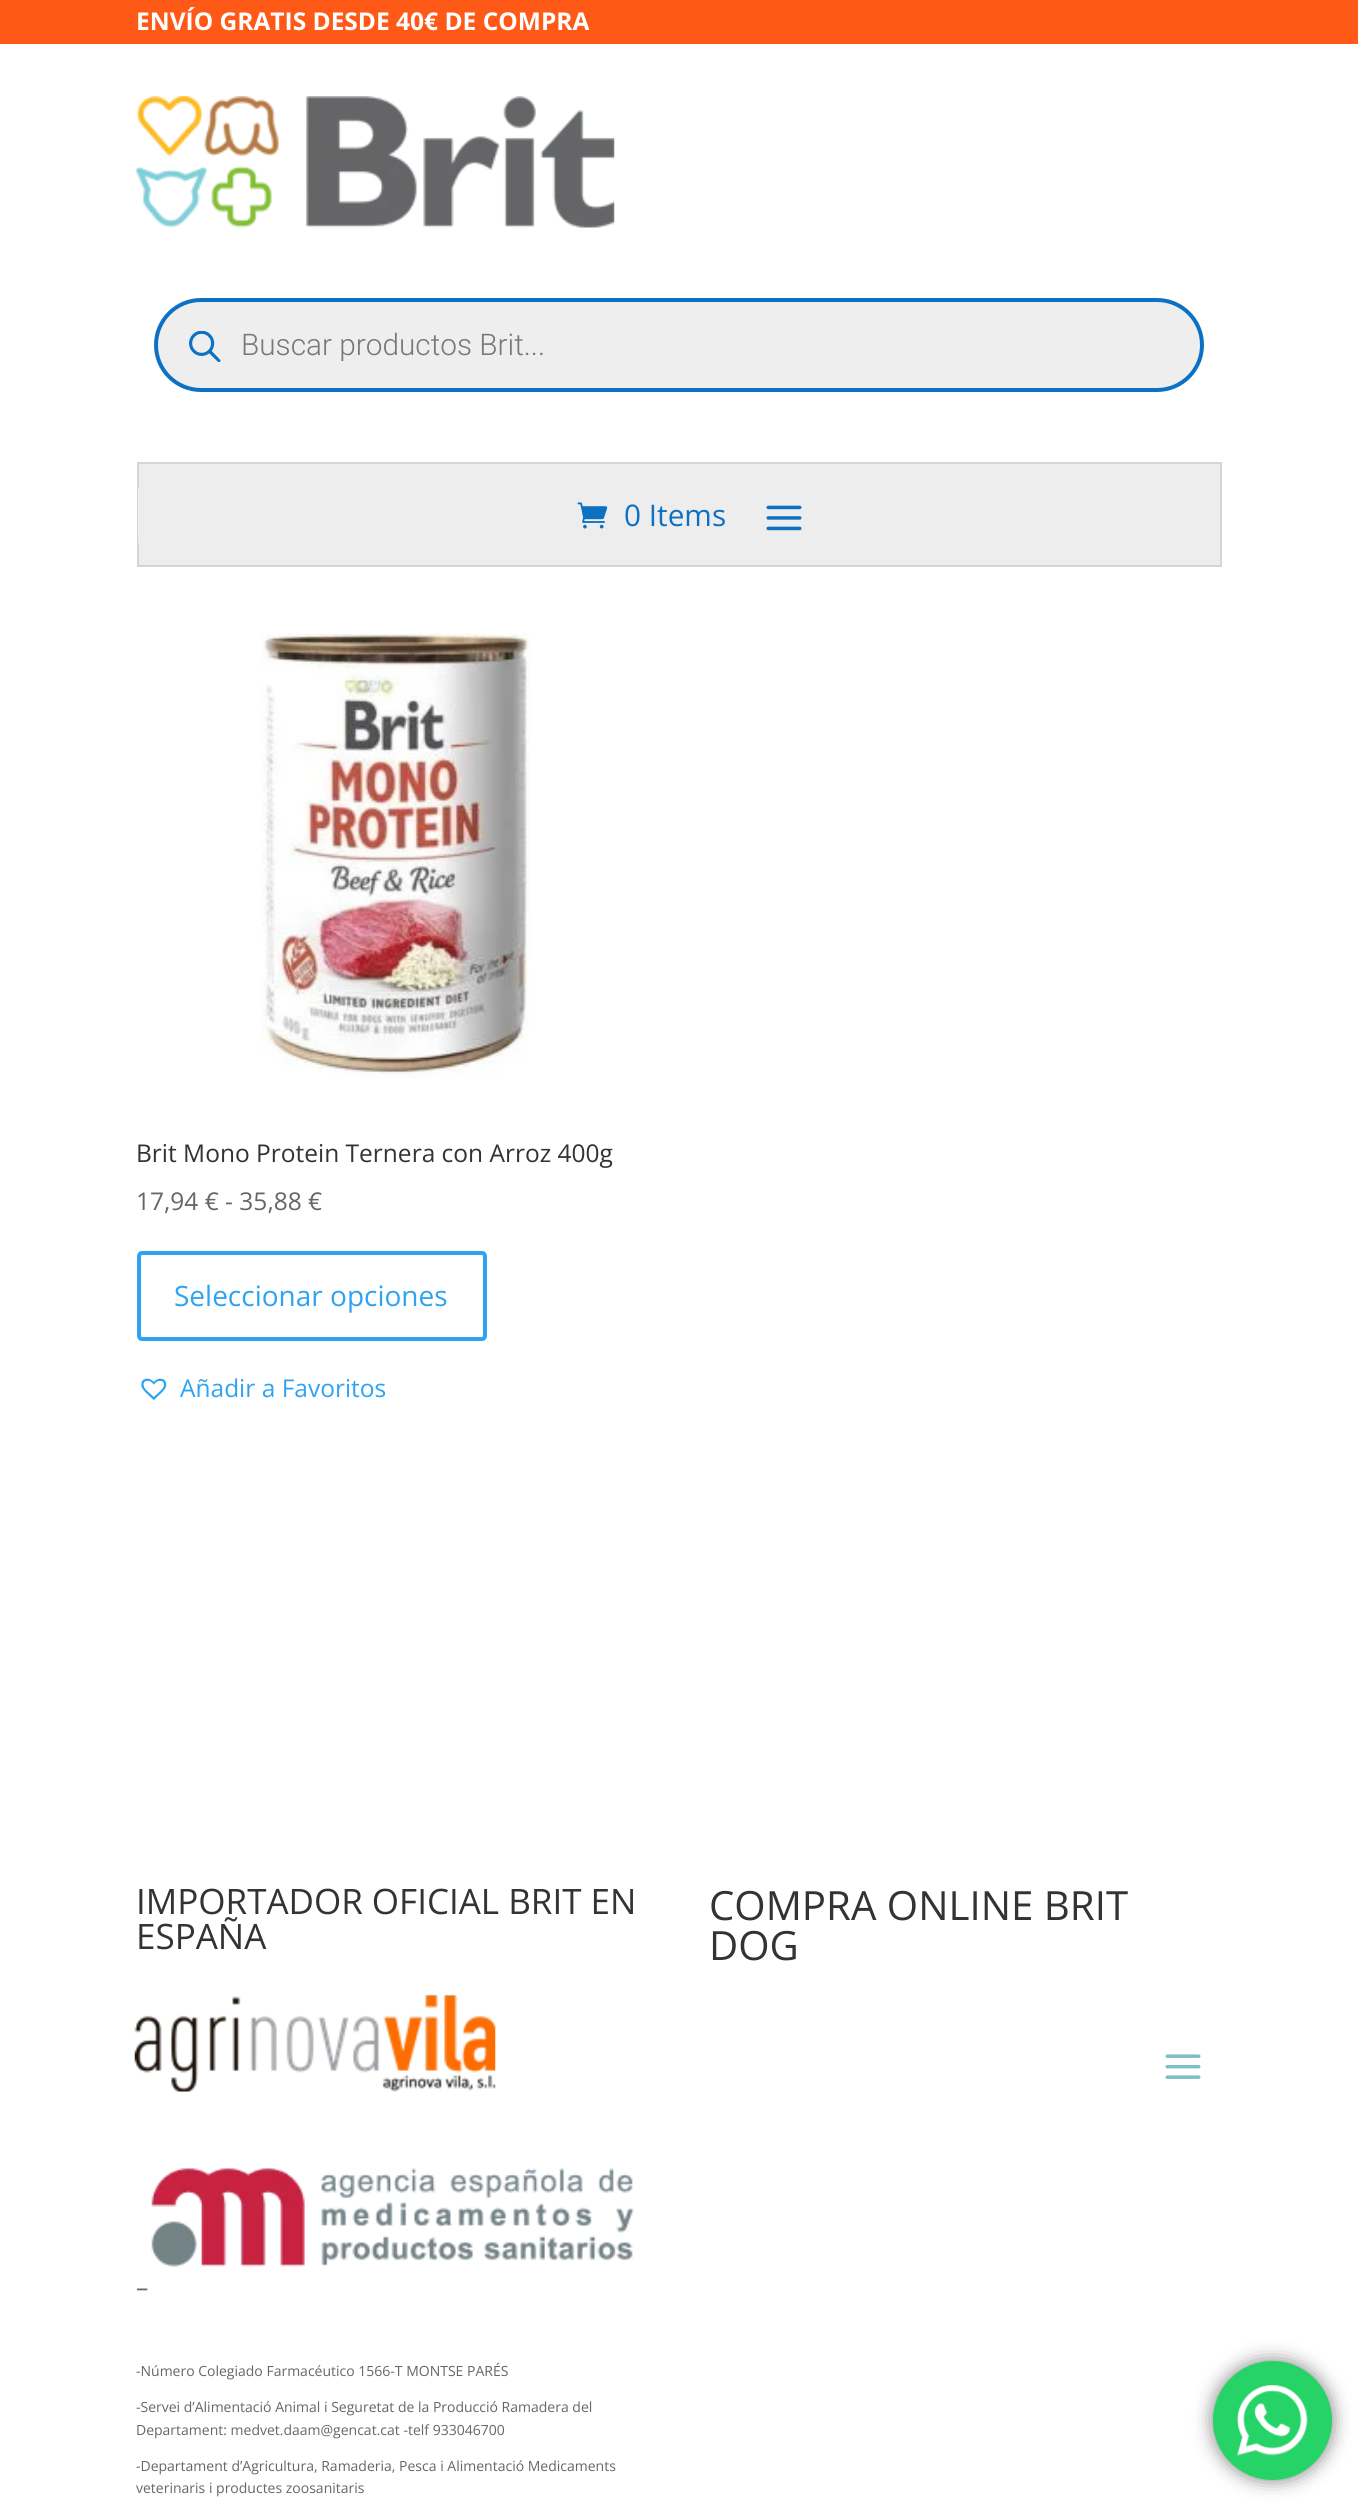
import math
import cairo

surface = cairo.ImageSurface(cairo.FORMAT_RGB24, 1358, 2506)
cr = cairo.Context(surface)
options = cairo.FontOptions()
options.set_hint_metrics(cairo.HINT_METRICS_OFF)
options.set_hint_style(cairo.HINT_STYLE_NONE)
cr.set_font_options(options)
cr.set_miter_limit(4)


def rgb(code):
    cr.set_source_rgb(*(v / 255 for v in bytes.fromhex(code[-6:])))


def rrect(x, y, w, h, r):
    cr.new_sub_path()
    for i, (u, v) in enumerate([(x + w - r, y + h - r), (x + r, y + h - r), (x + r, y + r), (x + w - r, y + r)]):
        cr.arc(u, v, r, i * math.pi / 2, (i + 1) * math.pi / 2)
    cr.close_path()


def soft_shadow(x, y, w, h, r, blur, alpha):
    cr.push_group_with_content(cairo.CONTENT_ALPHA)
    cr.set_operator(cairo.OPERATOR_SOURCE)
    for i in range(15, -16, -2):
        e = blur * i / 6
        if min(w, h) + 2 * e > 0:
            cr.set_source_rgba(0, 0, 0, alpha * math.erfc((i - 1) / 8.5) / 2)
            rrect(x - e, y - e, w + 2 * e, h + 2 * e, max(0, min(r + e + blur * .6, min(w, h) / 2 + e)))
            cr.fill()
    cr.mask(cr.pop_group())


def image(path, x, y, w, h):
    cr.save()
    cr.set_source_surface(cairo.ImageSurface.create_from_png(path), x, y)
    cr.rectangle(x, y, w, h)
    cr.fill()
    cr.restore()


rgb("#ffffff")
cr.paint()
rgb("#fe5917")
cr.rectangle(0, 0, 1358, 44)
cr.fill()
image("img/1.png", 136, 96, 479, 132)
rgb("#eeeeee")
rrect(156, 300, 1046, 90, 45)
cr.fill_preserve()
rgb("#0c71c3")
cr.set_line_width(4)
cr.stroke()
image("img/2.png", 189, 331, 32, 31)
rgb("#ededed")
cr.rectangle(138, 463, 1083, 103)
cr.fill_preserve()
rgb("#d5d5d5")
cr.set_line_width(2)
cr.stroke()
rgb("#ededed")
cr.rectangle(138, 487, 1, 56)
cr.fill()
image("img/3.png", 577, 502, 31, 27)
image("img/4.png", 766, 505, 36, 26)
image("img/5.png", 261, 633, 269, 445)
rrect(139, 1253, 346, 86, 3)
rgb("#2ea3f2")
cr.set_line_width(4)
cr.stroke()
image("img/6.png", 141, 1378, 26, 22)
image("img/7.png", 134, 1994, 362, 98)
image("img/8.png", 151, 2168, 483, 99)
image("img/9.png", 1165, 2054, 36, 25)
rgb("#000000")
soft_shadow(1213, 2361, 119, 119, 59.5, 9.5, 0.5)
rgb("#25d366")
cr.arc(1272.5, 2420.5, 59.5, 0, 2 * math.pi)
cr.fill()
image("img/10.png", 1237, 2385, 71, 71)
cr.select_font_face("Open Sans", cairo.FONT_SLANT_NORMAL, cairo.FONT_WEIGHT_BOLD)
cr.set_font_size(24.5)
rgb("#ffffff")
cr.move_to(136, 30)
cr.show_text("ENVÍO GRATIS DESDE 40€ DE COMPRA")
cr.select_font_face("Roboto Light")
cr.set_font_size(29.75)
rgb("#777777")
cr.move_to(241, 355)
cr.show_text("Buscar productos Brit...")
cr.select_font_face("Open Sans")
rgb("#0c71c3")
cr.move_to(624, 526)
cr.show_text("0 Items")
cr.set_font_size(24.5)
rgb("#333333")
cr.move_to(136, 1162)
cr.show_text("Brit Mono Protein Ternera con Arroz 400g")
rgb("#666666")
cr.move_to(136, 1210)
cr.show_text("17,94 € - 35,88 €")
cr.set_font_size(28)
rgb("#2ea3f2")
cr.move_to(174, 1306)
cr.show_text("Seleccionar opciones")
cr.set_font_size(24.5)
cr.move_to(180, 1397)
cr.show_text("Añadir a Favoritos")
cr.set_font_size(35)
rgb("#333333")
cr.move_to(136, 1914)
cr.show_text("IMPORTADOR OFICIAL BRIT EN")
cr.move_to(136, 1949)
cr.show_text("ESPAÑA")
cr.set_font_size(24.5)
rgb("#666666")
cr.move_to(136, 2296)
cr.show_text("–")
cr.set_font_size(14)
for x, y, s in [
    (136, 2376, "-Número Colegiado Farmacéutico 1566-T MONTSE PARÉS"),
    (136, 2412, "-Servei d’Alimentació Animal i Seguretat de la Producció Ramadera del"),
    (136, 2435, "Departament: medvet.daam@gencat.cat -telf 933046700"),
    (136, 2471, "-Departament d’Agricultura, Ramaderia, Pesca i Alimentació Medicaments"),
    (136, 2493, "veterinaris i productes zoosanitaris"),
]:
    cr.move_to(x, y)
    cr.show_text(s)
cr.set_font_size(40.25)
rgb("#333333")
cr.move_to(709, 1920)
cr.show_text("COMPRA ONLINE BRIT")
cr.move_to(709, 1960)
cr.show_text("DOG")
surface.write_to_png("page.png")
